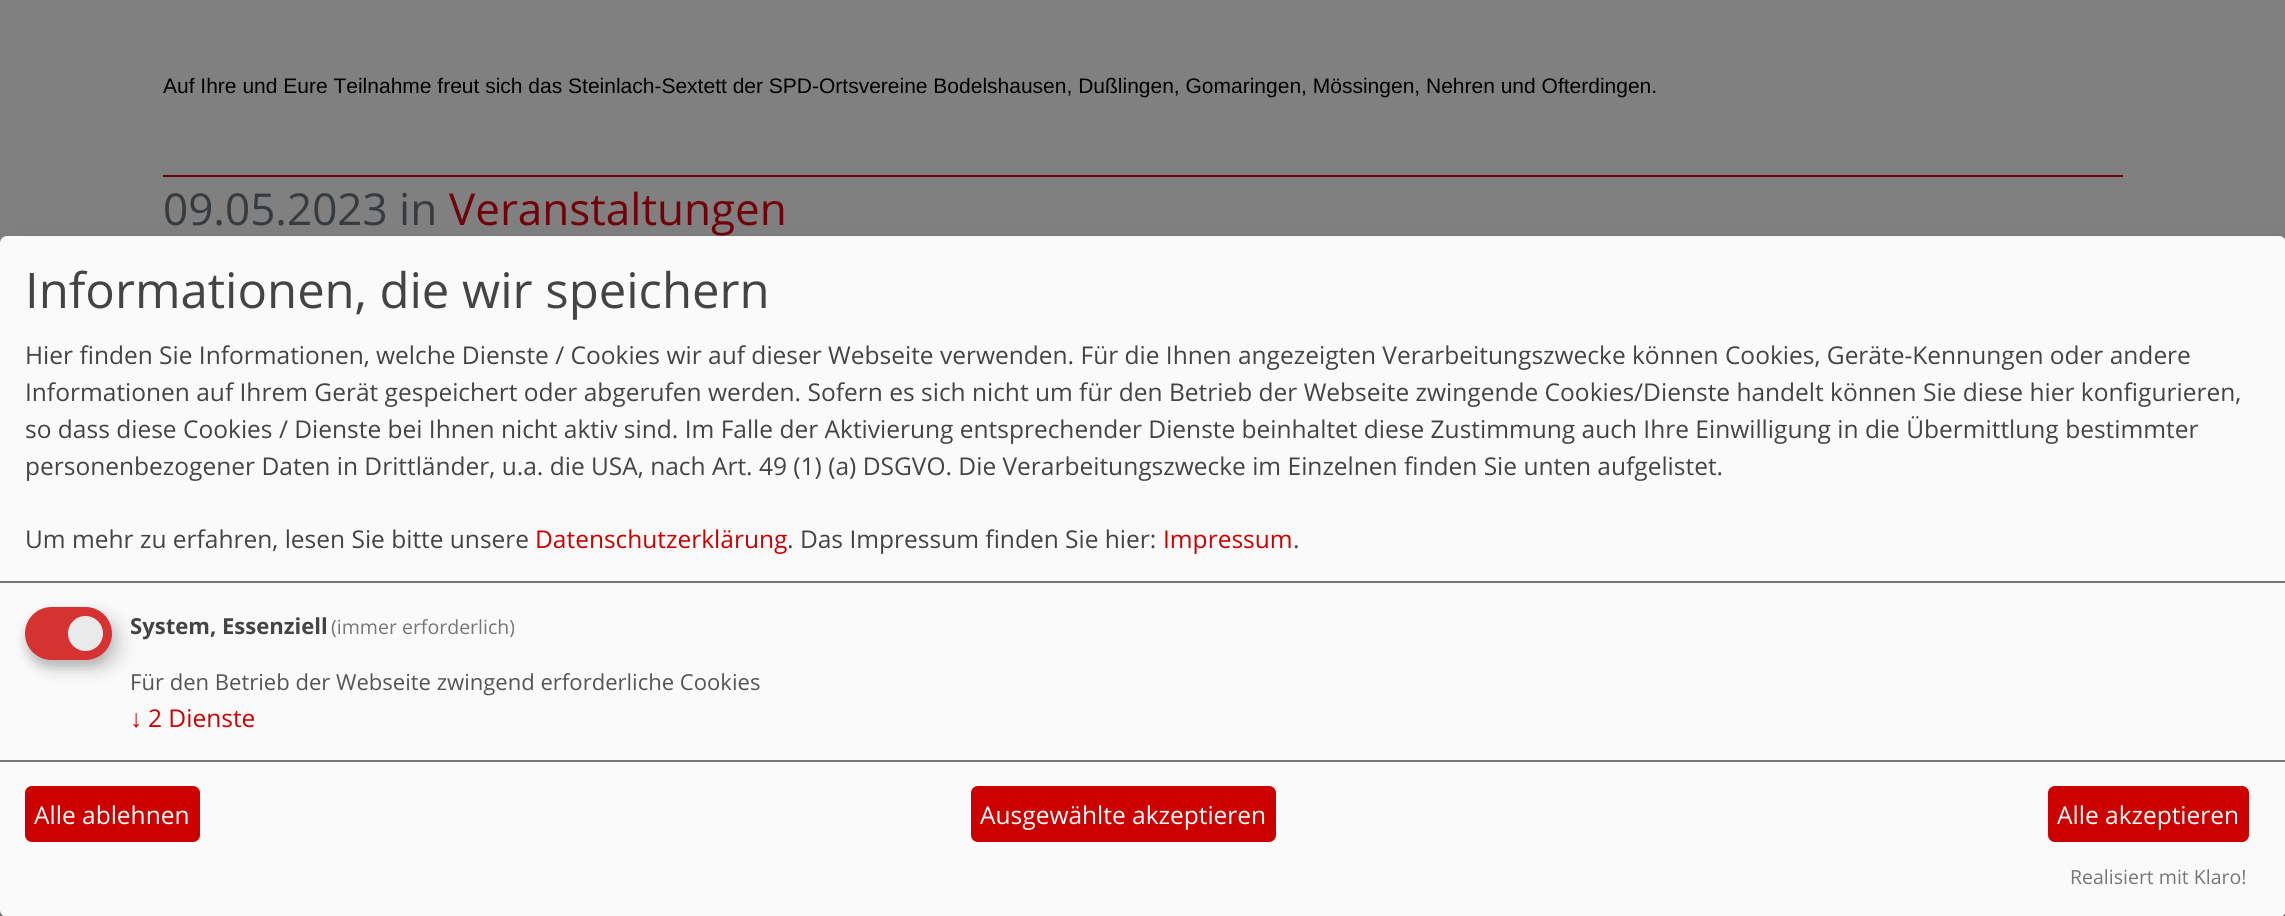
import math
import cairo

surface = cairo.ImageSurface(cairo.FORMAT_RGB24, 2285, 916)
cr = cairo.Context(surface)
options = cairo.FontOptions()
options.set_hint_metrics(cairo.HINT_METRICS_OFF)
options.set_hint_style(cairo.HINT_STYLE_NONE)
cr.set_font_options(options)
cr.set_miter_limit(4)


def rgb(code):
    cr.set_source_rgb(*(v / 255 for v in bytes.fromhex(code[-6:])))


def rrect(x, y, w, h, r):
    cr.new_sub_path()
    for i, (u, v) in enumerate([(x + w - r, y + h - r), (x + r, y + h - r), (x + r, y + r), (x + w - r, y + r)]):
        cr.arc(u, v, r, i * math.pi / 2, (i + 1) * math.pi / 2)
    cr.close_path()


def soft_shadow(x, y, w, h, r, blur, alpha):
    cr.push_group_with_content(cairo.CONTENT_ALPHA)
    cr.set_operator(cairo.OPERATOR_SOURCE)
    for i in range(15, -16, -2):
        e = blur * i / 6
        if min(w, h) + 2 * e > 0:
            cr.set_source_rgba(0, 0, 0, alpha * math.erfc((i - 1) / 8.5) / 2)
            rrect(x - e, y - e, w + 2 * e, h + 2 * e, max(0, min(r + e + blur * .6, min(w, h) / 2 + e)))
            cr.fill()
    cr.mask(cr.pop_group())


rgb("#808080")
cr.paint()
rgb("#720008")
cr.rectangle(163, 175, 1960, 2)
cr.fill()
rgb("#000000")
soft_shadow(9, 245, 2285, 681, 7, 9, 0.19)
soft_shadow(0, 243, 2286, 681, 7, 5, 0.2)
rgb("#fafafa")
rrect(0, 236, 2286, 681, 7)
cr.fill()
rgb("#777777")
cr.rectangle(0, 581, 2285, 2)
cr.fill()
rgb("#000000")
soft_shadow(33, 616, 88, 53, 26.5, 9, 0.15)
rgb("#323232")
soft_shadow(25, 614, 87, 53, 26.5, 5, 0.2)
rgb("#d63232")
rrect(25, 607, 87, 53, 26.5)
cr.fill()
rgb("#eaeaea")
cr.arc(85.5, 633.5, 17.5, 0, 2 * math.pi)
cr.fill()
rgb("#777777")
cr.rectangle(0, 760, 2285, 2)
cr.fill()
rgb("#cd0000")
rrect(25, 786, 175, 56, 7)
cr.fill()
rrect(971, 786, 305, 56, 7)
cr.fill()
rrect(2048, 786, 201, 56, 7)
cr.fill()
cr.select_font_face("Liberation Sans")
cr.set_font_size(21)
rgb("#000000")
cr.move_to(163, 93)
cr.show_text("Auf Ihre und Eure Teilnahme freut sich das Steinlach-Sextett der SPD-Ortsvereine Bodelshausen, Dußlingen, Gomaringen, Mössingen, Nehren und Ofterdingen.")
cr.select_font_face("Open Sans")
cr.set_font_size(44)
rgb("#363b3f")
cr.move_to(163, 225)
cr.show_text("09.05.2023 in")
rgb("#720008")
cr.move_to(449, 225)
cr.show_text("Veranstaltungen")
cr.set_font_size(49)
rgb("#444444")
cr.move_to(25, 308)
cr.show_text("Informationen, die wir speichern")
cr.set_font_size(24.5)
for x, y, s in [
    (25, 364, "Hier finden Sie Informationen, welche Dienste / Cookies wir auf dieser Webseite verwenden. Für die Ihnen angezeigten Verarbeitungszwecke können Cookies, Geräte-Kennungen oder andere"),
    (25, 401, "Informationen auf Ihrem Gerät gespeichert oder abgerufen werden. Sofern es sich nicht um für den Betrieb der Webseite zwingende Cookies/Dienste handelt können Sie diese hier konfigurieren,"),
    (25, 438, "so dass diese Cookies / Dienste bei Ihnen nicht aktiv sind. Im Falle der Aktivierung entsprechender Dienste beinhaltet diese Zustimmung auch Ihre Einwilligung in die Übermittlung bestimmter"),
    (25, 475, "personenbezogener Daten in Drittländer, u.a. die USA, nach Art. 49 (1) (a) DSGVO. Die Verarbeitungszwecke im Einzelnen finden Sie unten aufgelistet."),
    (25, 548, "Um mehr zu erfahren, lesen Sie bitte unsere"),
]:
    cr.move_to(x, y)
    cr.show_text(s)
rgb("#cd0000")
cr.move_to(535, 548)
cr.show_text("Datenschutzerklärung")
rgb("#444444")
cr.move_to(787, 548)
cr.show_text(". Das Impressum finden Sie hier:")
rgb("#cd0000")
cr.move_to(1163, 548)
cr.show_text("Impressum")
rgb("#444444")
cr.move_to(1293, 548)
cr.show_text(".")
cr.select_font_face("Open Sans", cairo.FONT_SLANT_NORMAL, cairo.FONT_WEIGHT_BOLD)
cr.set_font_size(22.05)
cr.move_to(130, 634)
cr.show_text("System, Essenziell")
cr.select_font_face("Open Sans")
cr.set_font_size(19.5)
rgb("#777777")
cr.move_to(331, 634)
cr.show_text("(immer erforderlich)")
cr.set_font_size(22.05)
rgb("#555555")
cr.move_to(130, 690)
cr.show_text("Für den Betrieb der Webseite zwingend erforderliche Cookies")
cr.select_font_face("Liberation Sans")
cr.set_font_size(24.5)
rgb("#cd0000")
cr.move_to(130, 727)
cr.show_text("↓")
cr.select_font_face("Open Sans")
cr.move_to(148, 727)
cr.show_text("2 Dienste")
rgb("#ffffff")
for x, y, s in [
    (34, 824, "Alle ablehnen"),
    (980, 824, "Ausgewählte akzeptieren"),
    (2057, 824, "Alle akzeptieren"),
]:
    cr.move_to(x, y)
    cr.show_text(s)
cr.set_font_size(19.5)
rgb("#777777")
cr.move_to(2070, 884)
cr.show_text("Realisiert mit Klaro!")
surface.write_to_png("page.png")
